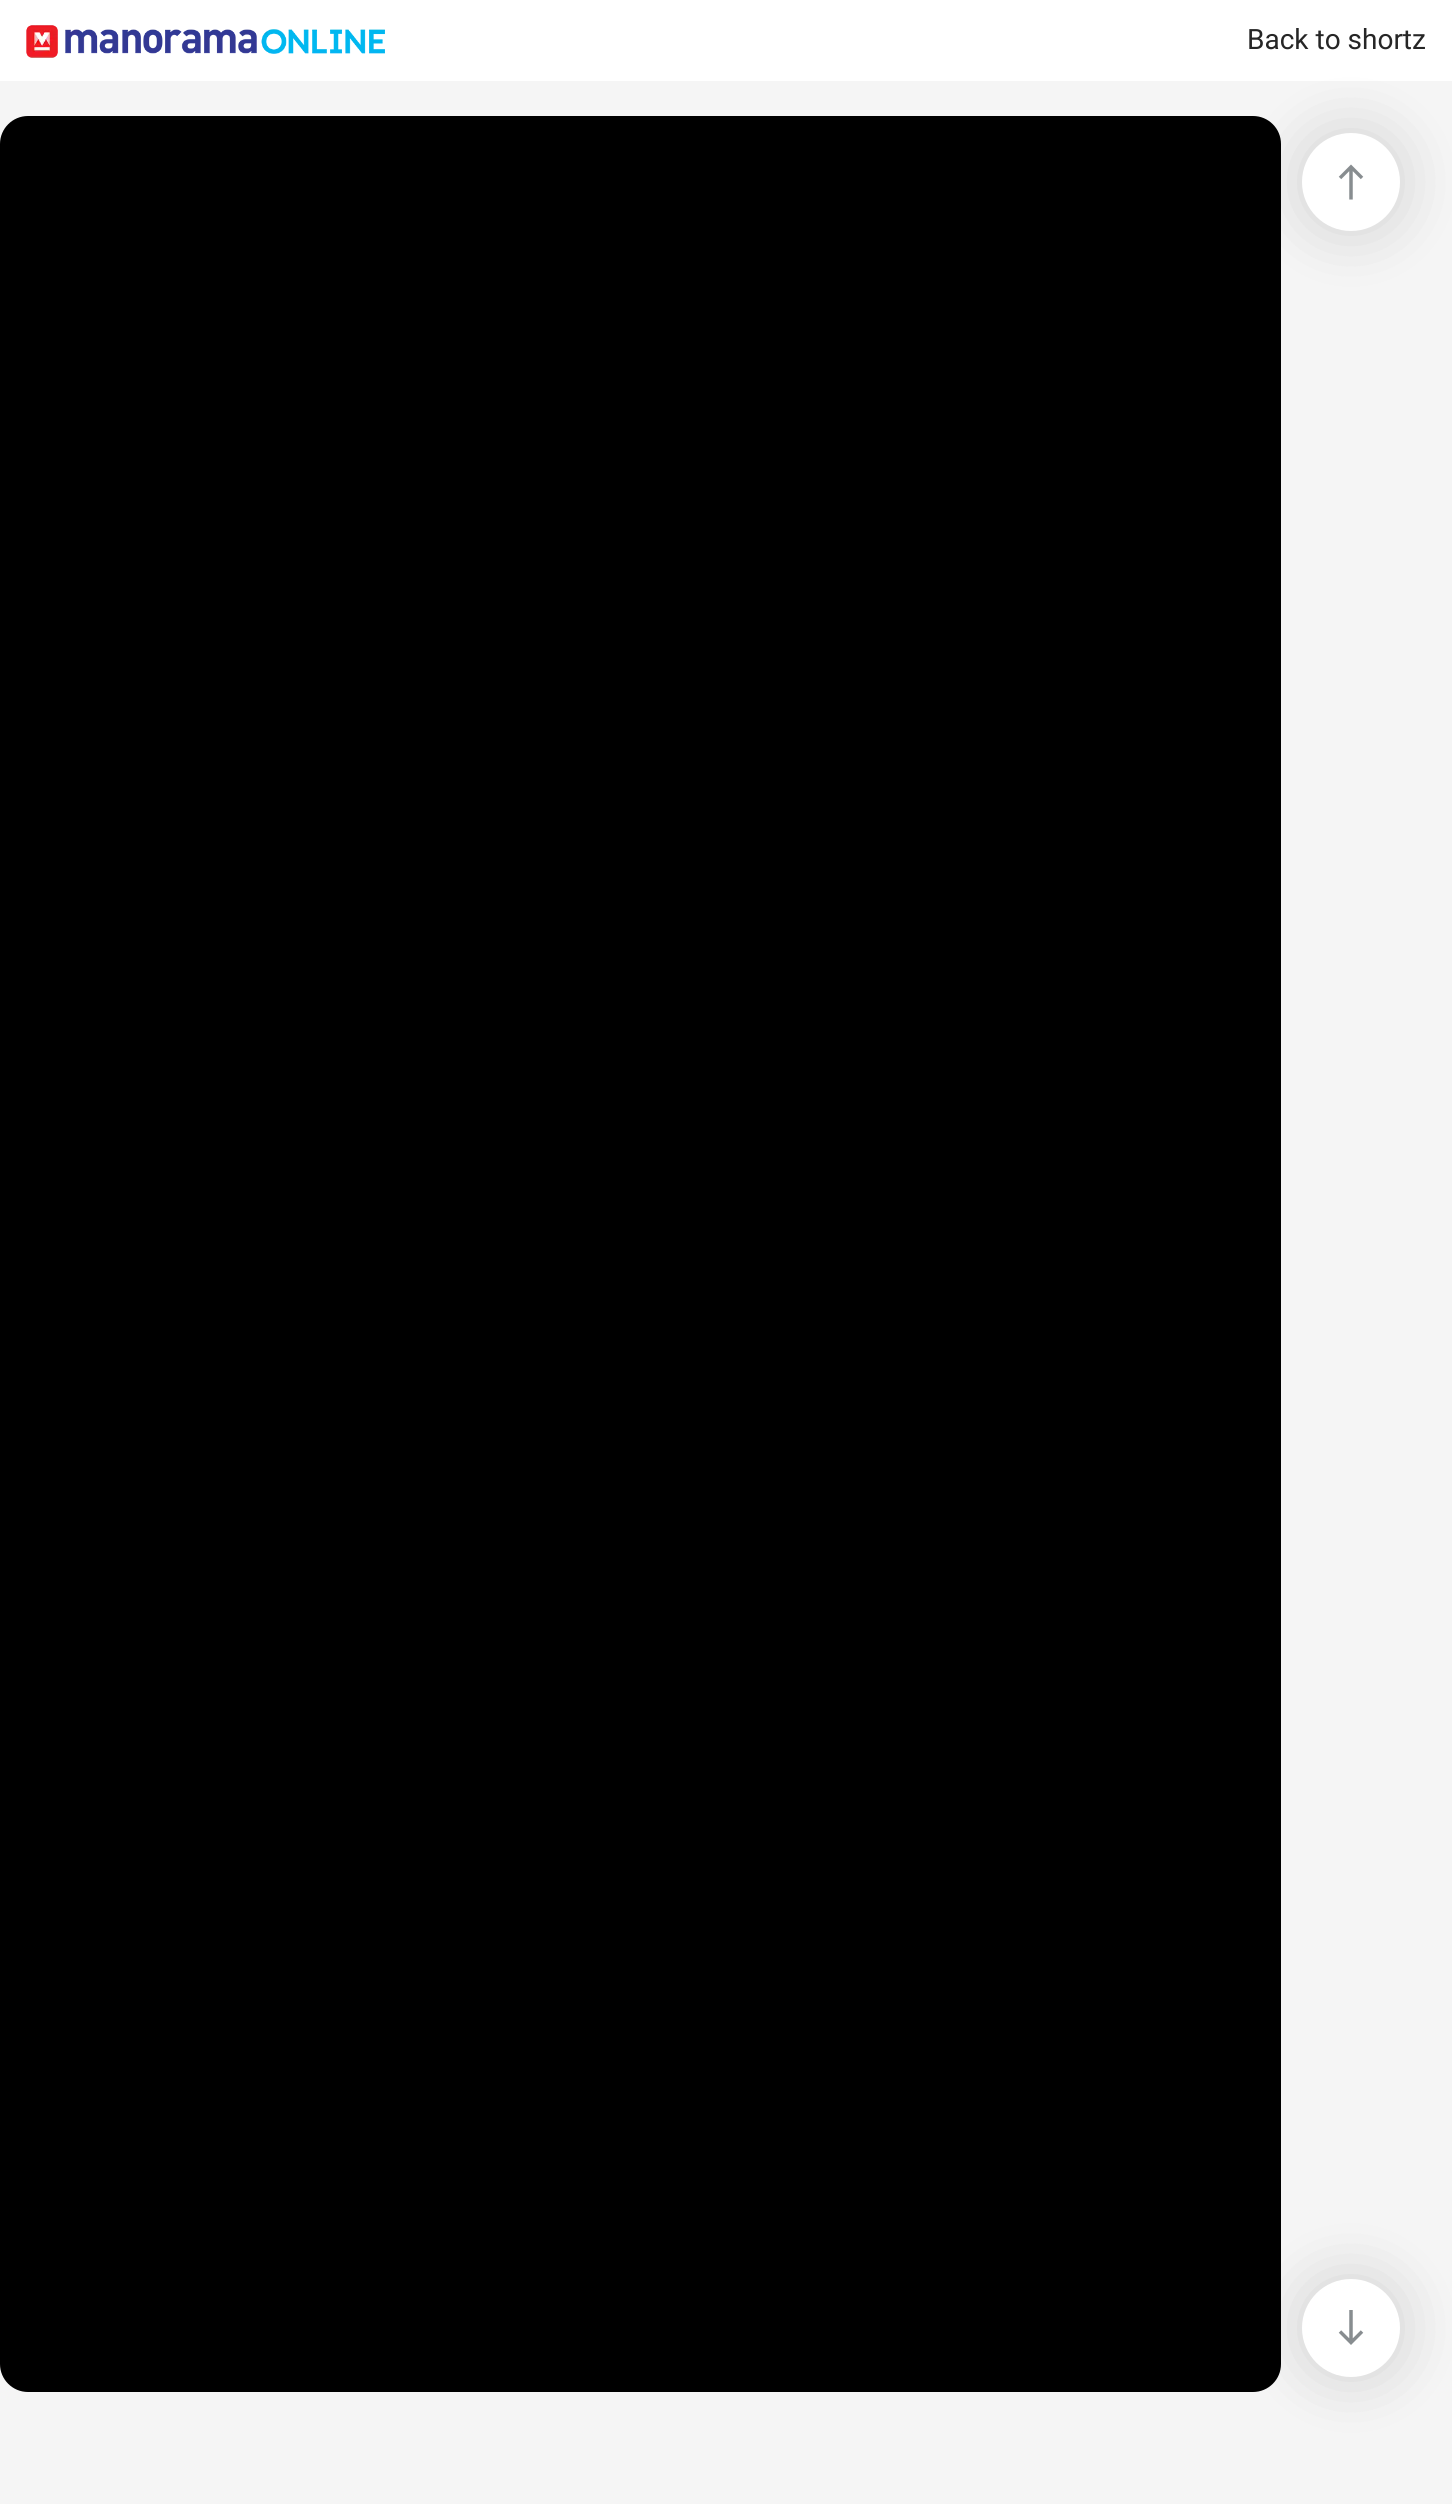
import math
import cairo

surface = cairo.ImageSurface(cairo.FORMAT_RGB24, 1452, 2504)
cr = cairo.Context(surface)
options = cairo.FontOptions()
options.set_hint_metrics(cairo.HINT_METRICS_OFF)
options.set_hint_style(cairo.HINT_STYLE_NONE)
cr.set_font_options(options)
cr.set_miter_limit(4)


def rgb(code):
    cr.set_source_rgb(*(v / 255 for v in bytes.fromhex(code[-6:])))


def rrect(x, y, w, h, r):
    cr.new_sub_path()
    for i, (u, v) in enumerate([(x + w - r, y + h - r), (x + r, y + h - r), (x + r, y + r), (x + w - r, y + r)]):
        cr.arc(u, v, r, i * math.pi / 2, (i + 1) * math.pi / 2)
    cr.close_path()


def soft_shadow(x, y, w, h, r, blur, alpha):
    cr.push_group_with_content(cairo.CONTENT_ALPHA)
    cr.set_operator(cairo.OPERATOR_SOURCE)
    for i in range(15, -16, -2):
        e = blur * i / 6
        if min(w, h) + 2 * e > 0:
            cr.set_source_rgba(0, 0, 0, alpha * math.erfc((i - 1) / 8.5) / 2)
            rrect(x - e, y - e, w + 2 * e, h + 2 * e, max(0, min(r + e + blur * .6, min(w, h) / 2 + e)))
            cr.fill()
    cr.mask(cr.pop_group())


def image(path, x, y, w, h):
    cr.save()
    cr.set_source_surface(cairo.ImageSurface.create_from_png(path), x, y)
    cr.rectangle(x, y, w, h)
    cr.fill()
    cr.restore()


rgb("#ffffff")
cr.paint()
image("img/1.png", 26, 25, 359, 33)
rgb("#f5f5f5")
cr.rectangle(0, 81, 1452, 2423)
cr.fill()
rgb("#000000")
soft_shadow(1302, 133, 98, 98, 49, 30.5, 0.15)
soft_shadow(1302, 2279, 98, 98, 49, 30.5, 0.15)
rgb("#000000")
rrect(0, 116, 1281, 2276, 28)
cr.fill()
rgb("#ffffff")
cr.arc(1351, 182, 49, 0, 2 * math.pi)
cr.fill()
image("img/2.png", 1338, 164, 26, 36)
cr.arc(1351, 2328, 49, 0, 2 * math.pi)
cr.fill()
image("img/3.png", 1338, 2310, 26, 35)
cr.select_font_face("Roboto")
cr.set_font_size(28)
rgb("#262626")
cr.move_to(1247, 49)
cr.show_text("Back to shortz")
surface.write_to_png("page.png")
